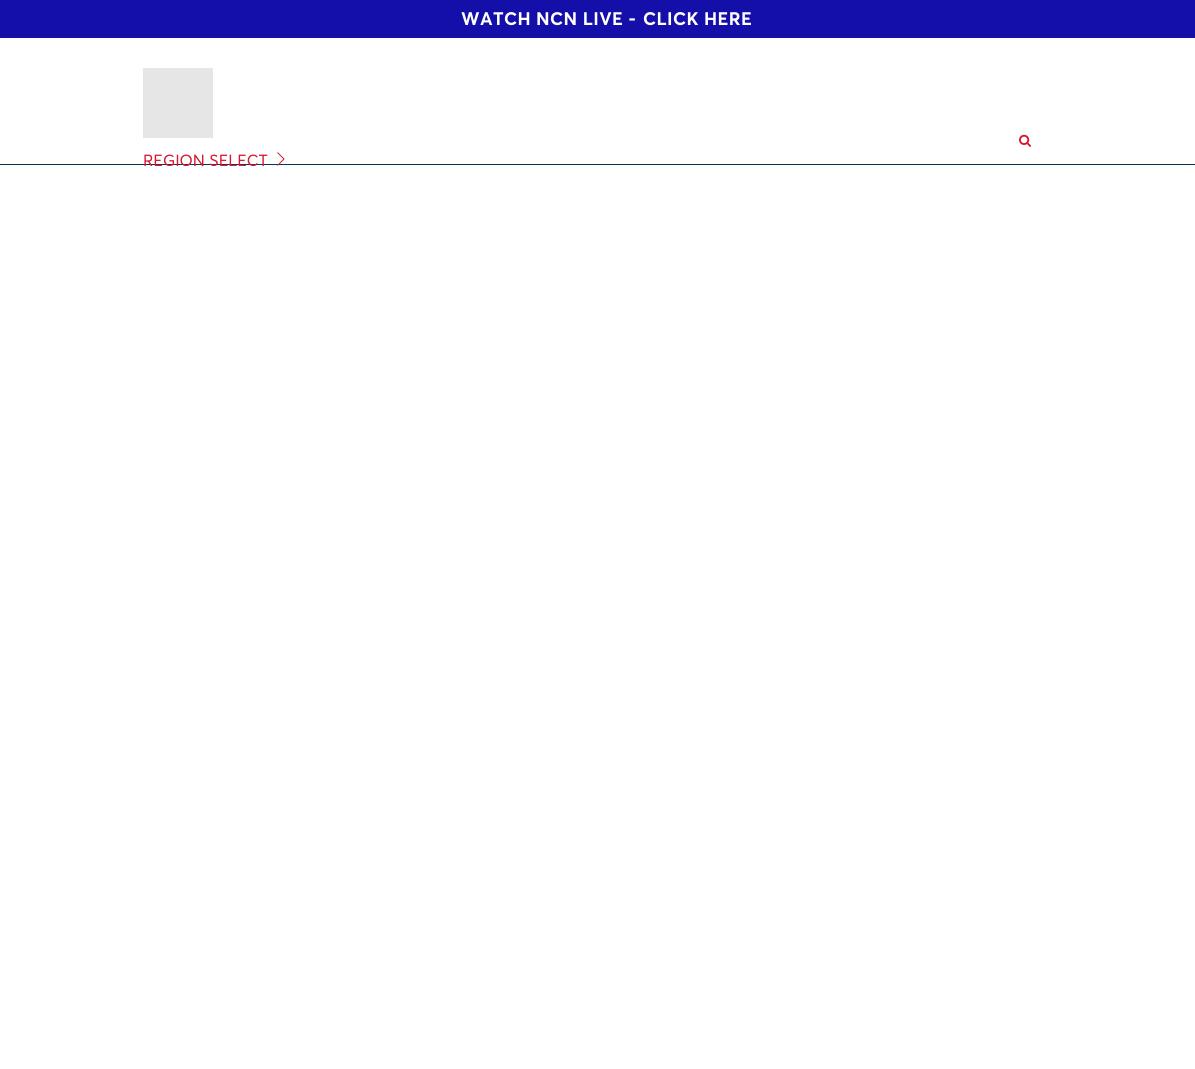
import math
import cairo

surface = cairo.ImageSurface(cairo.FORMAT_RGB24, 1195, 1069)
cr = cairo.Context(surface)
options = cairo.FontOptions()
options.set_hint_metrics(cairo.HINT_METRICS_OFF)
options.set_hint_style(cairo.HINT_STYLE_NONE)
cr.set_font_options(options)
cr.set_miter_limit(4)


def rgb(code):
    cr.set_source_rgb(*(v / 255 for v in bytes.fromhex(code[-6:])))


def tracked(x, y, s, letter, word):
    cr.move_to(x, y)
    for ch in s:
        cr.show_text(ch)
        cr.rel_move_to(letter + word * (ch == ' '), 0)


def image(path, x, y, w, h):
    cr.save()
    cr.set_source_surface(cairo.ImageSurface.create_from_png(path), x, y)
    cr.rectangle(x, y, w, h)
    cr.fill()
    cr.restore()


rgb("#ffffff")
cr.paint()
rgb("#140fa8")
cr.rectangle(0, 0, 1195, 38)
cr.fill()
rgb("#043556")
cr.rectangle(0, 164, 1195, 1)
cr.fill()
image("img/1.png", 1019, 134, 12, 13)
rgb("#e6e6e6")
cr.rectangle(143, 68, 70, 70)
cr.fill()
cr.new_path()
cr.move_to(277.5, 152.5)
cr.line_to(284, 159)
cr.line_to(277.5, 165.5)
rgb("#d7172f")
cr.set_line_width(1)
cr.stroke()
cr.select_font_face("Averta", cairo.FONT_SLANT_NORMAL, cairo.FONT_WEIGHT_BOLD)
cr.set_font_size(18)
rgb("#ffffff")
tracked(461, 25, "WATCH NCN LIVE -", 0.4, 0)
tracked(643, 25, "CLICK HERE", 0.4, 0)
cr.select_font_face("Averta")
cr.set_font_size(16)
rgb("#d7172f")
cr.move_to(143, 166)
cr.show_text("REGION SELECT")
surface.write_to_png("page.png")
